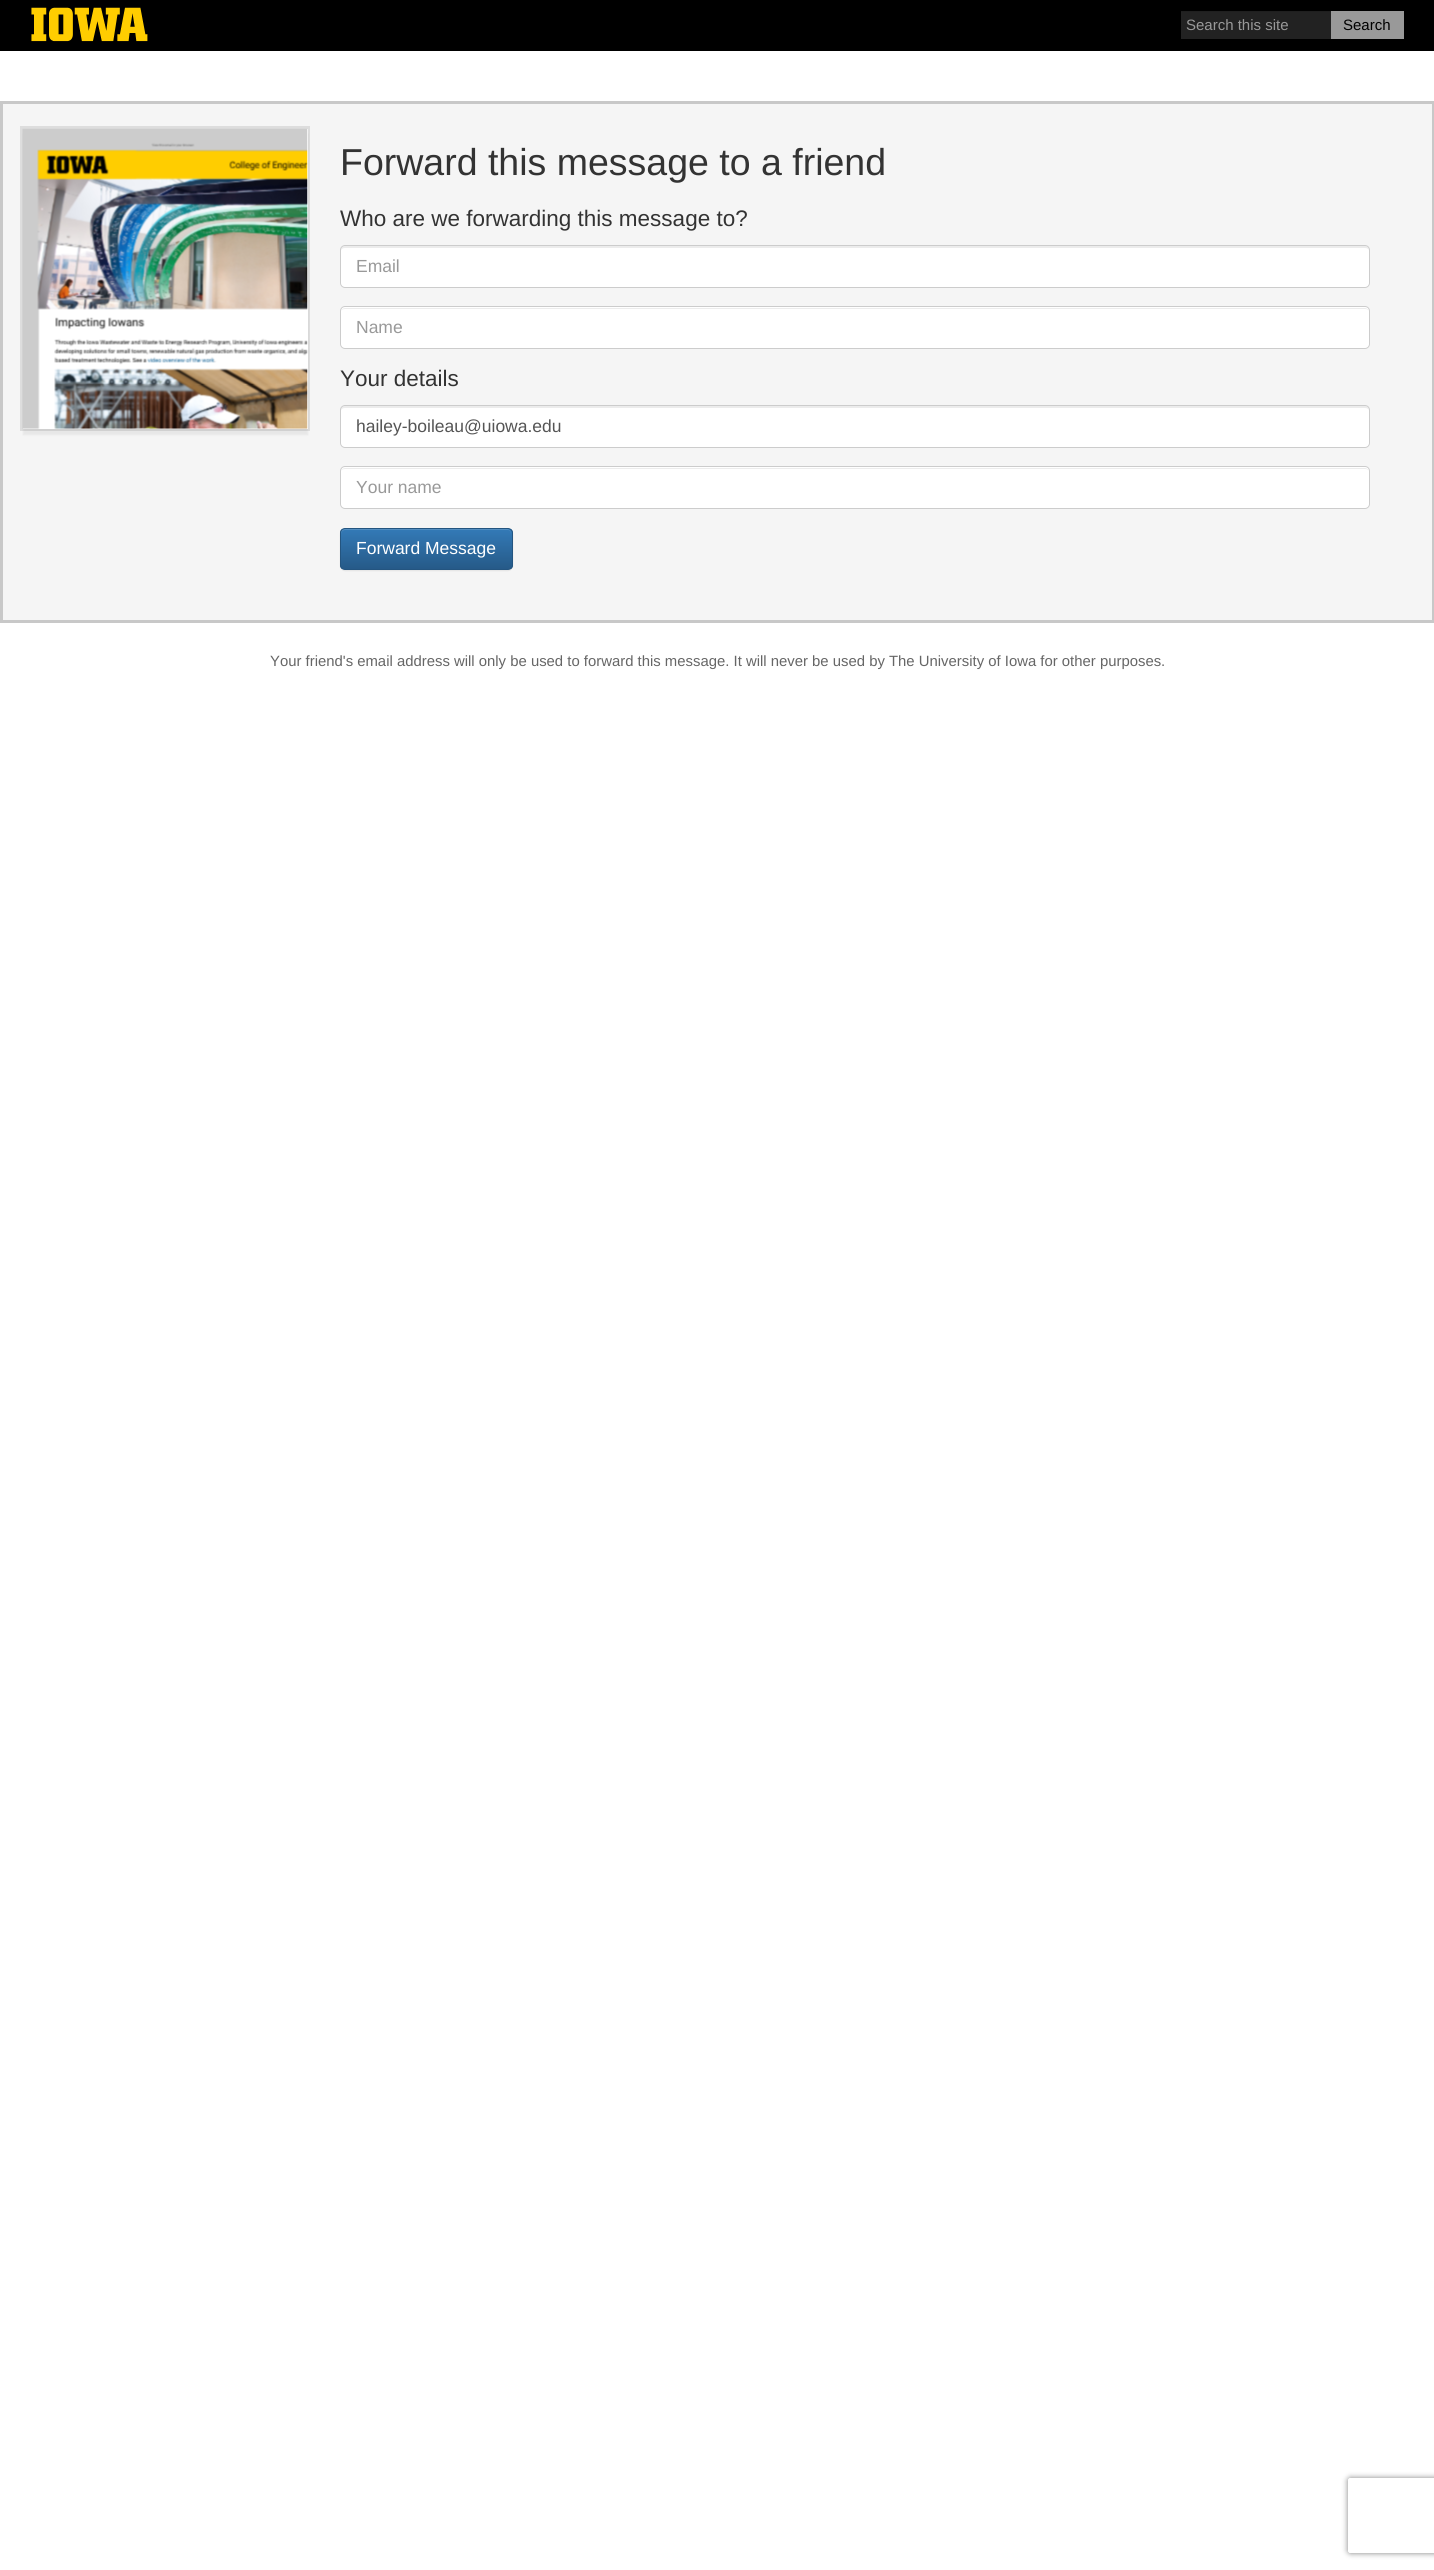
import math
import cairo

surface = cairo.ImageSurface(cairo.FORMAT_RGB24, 1434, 2570)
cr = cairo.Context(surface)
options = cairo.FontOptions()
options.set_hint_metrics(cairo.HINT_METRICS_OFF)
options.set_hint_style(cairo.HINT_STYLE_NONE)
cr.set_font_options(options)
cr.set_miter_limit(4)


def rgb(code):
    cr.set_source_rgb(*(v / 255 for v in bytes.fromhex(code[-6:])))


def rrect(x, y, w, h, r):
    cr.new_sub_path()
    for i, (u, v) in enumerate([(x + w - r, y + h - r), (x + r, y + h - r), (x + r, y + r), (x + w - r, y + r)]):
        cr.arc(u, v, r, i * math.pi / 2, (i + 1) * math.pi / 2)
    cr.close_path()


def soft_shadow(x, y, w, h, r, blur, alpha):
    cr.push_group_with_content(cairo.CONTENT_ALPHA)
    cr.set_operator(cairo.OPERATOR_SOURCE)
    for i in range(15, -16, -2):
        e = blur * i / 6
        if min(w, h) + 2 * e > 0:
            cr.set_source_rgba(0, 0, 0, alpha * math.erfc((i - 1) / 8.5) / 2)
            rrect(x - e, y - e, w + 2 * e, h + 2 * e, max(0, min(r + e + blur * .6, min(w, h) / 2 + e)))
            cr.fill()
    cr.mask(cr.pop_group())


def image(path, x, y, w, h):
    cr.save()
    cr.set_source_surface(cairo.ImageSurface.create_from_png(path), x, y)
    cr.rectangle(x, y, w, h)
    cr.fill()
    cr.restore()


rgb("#ffffff")
cr.paint()
rgb("#000000")
cr.rectangle(0, 0, 1434, 51)
cr.fill()
image("img/1.png", 31, 7, 117, 35)
for x, y, w, h, color in [
    (1181, 12, 150, 27, "#222222"),
    (1181, 11, 150, 1, "#1f1f1f"),
    (1331, 11, 73, 28, "#999999"),
]:
    rgb(color)
    cr.rectangle(x, y, w, h)
    cr.fill()
rgb("#f5f5f5")
cr.rectangle(1.5, 102.5, 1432, 519)
cr.fill_preserve()
rgb("#c8c8c8")
cr.set_line_width(3)
cr.stroke()
rgb("#000000")
soft_shadow(23, 134, 285, 301, 0, 1, 0.06)
cr.rectangle(21.5, 127.5, 287, 302)
cr.set_source_rgba(0, 0, 0, 0.1)
cr.stroke()
rgb("#ffffff")
cr.rectangle(23, 129, 285, 300)
cr.fill()
image("img/2.png", 22, 128, 286, 301)
rrect(340, 245, 1030, 43, 5)
cr.fill()
rgb("#ececec")
cr.new_path()
cr.move_to(345, 248)
cr.line_to(1365, 248)
cr.curve_to(1367, 248, 1369, 249, 1369, 251)
cr.curve_to(1369, 248, 1368, 246, 1365, 246)
cr.line_to(345, 246)
cr.curve_to(342, 246, 341, 248, 341, 251)
cr.curve_to(341, 249, 343, 248, 345, 248)
cr.close_path()
cr.fill()
rrect(340.5, 245.5, 1029, 42, 4.5)
rgb("#cccccc")
cr.set_line_width(1)
cr.stroke()
rgb("#ffffff")
rrect(340, 306, 1030, 43, 5)
cr.fill()
rgb("#ececec")
cr.new_path()
cr.move_to(345, 309)
cr.line_to(1365, 309)
cr.curve_to(1367, 309, 1369, 310, 1369, 312)
cr.curve_to(1369, 310, 1367, 308, 1365, 308)
cr.line_to(345, 308)
cr.curve_to(343, 308, 341, 310, 341, 312)
cr.curve_to(341, 310, 343, 309, 345, 309)
cr.close_path()
cr.fill()
rrect(340.5, 306.5, 1029, 42, 4.5)
rgb("#cccccc")
cr.stroke()
rgb("#ffffff")
rrect(340, 405, 1030, 43, 5)
cr.fill()
rgb("#ececec")
cr.new_path()
cr.move_to(345, 408)
cr.line_to(1365, 408)
cr.curve_to(1367, 408, 1369, 409, 1369, 411)
cr.curve_to(1369, 408, 1368, 406, 1365, 406)
cr.line_to(345, 406)
cr.curve_to(342, 406, 341, 408, 341, 411)
cr.curve_to(341, 409, 343, 408, 345, 408)
cr.close_path()
cr.fill()
rrect(340.5, 405.5, 1029, 42, 4.5)
rgb("#cccccc")
cr.stroke()
rgb("#ffffff")
rrect(340, 466, 1030, 43, 5)
cr.fill()
rgb("#ececec")
cr.new_path()
cr.move_to(345, 469)
cr.line_to(1365, 469)
cr.curve_to(1367, 469, 1369, 470, 1369, 472)
cr.curve_to(1369, 470, 1367, 468, 1365, 468)
cr.line_to(345, 468)
cr.curve_to(343, 468, 341, 470, 341, 472)
cr.curve_to(341, 470, 343, 469, 345, 469)
cr.close_path()
cr.fill()
rrect(340.5, 466.5, 1029, 42, 4.5)
rgb("#cccccc")
cr.stroke()
rgb("#000000")
soft_shadow(340, 529, 173, 42, 5, 0.5, 0.07)
cr.save()
rrect(340, 528, 173, 42, 5)
cr.clip()
gradient = cairo.LinearGradient(426, 529, 426, 569)
gradient.add_color_stop_rgba(0, 0.2, 0.478, 0.718, 1)
gradient.add_color_stop_rgba(1, 0.149, 0.353, 0.533, 1)
cr.set_source(gradient)
cr.rectangle(340, 529, 173, 40)
cr.fill()
cr.restore()
rgb("#528ec1")
cr.new_path()
cr.move_to(345, 530)
cr.line_to(508, 530)
cr.curve_to(510, 530, 511, 532, 511, 534)
cr.line_to(511, 533)
cr.curve_to(511, 531, 509, 529, 507, 529)
cr.line_to(345, 529)
cr.curve_to(343, 529, 341, 531, 341, 533)
cr.line_to(341, 534)
cr.curve_to(341, 532, 343, 530, 345, 530)
cr.close_path()
cr.fill()
rrect(340.5, 528.5, 172, 41, 4.5)
rgb("#245580")
cr.stroke()
cr.save()
cr.set_fill_rule(cairo.FILL_RULE_EVEN_ODD)
cr.new_path()
cr.move_to(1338, 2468)
cr.line_to(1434, 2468)
cr.line_to(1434, 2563)
cr.line_to(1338, 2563)
cr.close_path()
cr.move_to(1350.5, 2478)
cr.line_to(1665.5, 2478)
cr.curve_to(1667, 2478, 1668, 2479, 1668, 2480.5)
cr.line_to(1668, 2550.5)
cr.curve_to(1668, 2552, 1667, 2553, 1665.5, 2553)
cr.line_to(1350.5, 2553)
cr.curve_to(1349, 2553, 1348, 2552, 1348, 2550.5)
cr.line_to(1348, 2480.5)
cr.curve_to(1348, 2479, 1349, 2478, 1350.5, 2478)
cr.close_path()
cr.clip()
rgb("#808080")
soft_shadow(1348, 2478, 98, 75, 2.5, 3, 1)
cr.restore()
cr.select_font_face("Liberation Sans")
cr.set_font_size(15)
rgb("#999999")
cr.move_to(1186, 30)
cr.show_text("Search this site")
rgb("#000000")
cr.move_to(1343, 30)
cr.show_text("Search")
cr.set_font_size(37.5)
rgb("#333333")
cr.move_to(340, 175)
cr.show_text("Forward this message to a friend")
cr.set_font_size(22.5)
cr.move_to(340, 226)
cr.show_text("Who are we forwarding this message to?")
cr.set_font_size(17.5)
rgb("#999999")
cr.move_to(356, 272)
cr.show_text("Email")
cr.move_to(356, 333)
cr.show_text("Name")
cr.set_font_size(22.5)
rgb("#333333")
cr.move_to(340, 386)
cr.show_text("Your details")
cr.set_font_size(17.5)
rgb("#555555")
cr.move_to(356, 432)
cr.show_text("hailey-boileau@uiowa.edu")
rgb("#999999")
cr.move_to(356, 493)
cr.show_text("Your name")
rgb("#ffffff")
cr.move_to(356, 554)
cr.show_text("Forward Message")
cr.set_font_size(14.88)
rgb("#666666")
cr.move_to(270, 666)
cr.show_text("Your friend's email address will only be used to forward this message. It will never be used by The University of Iowa for other purposes.")
surface.write_to_png("page.png")
